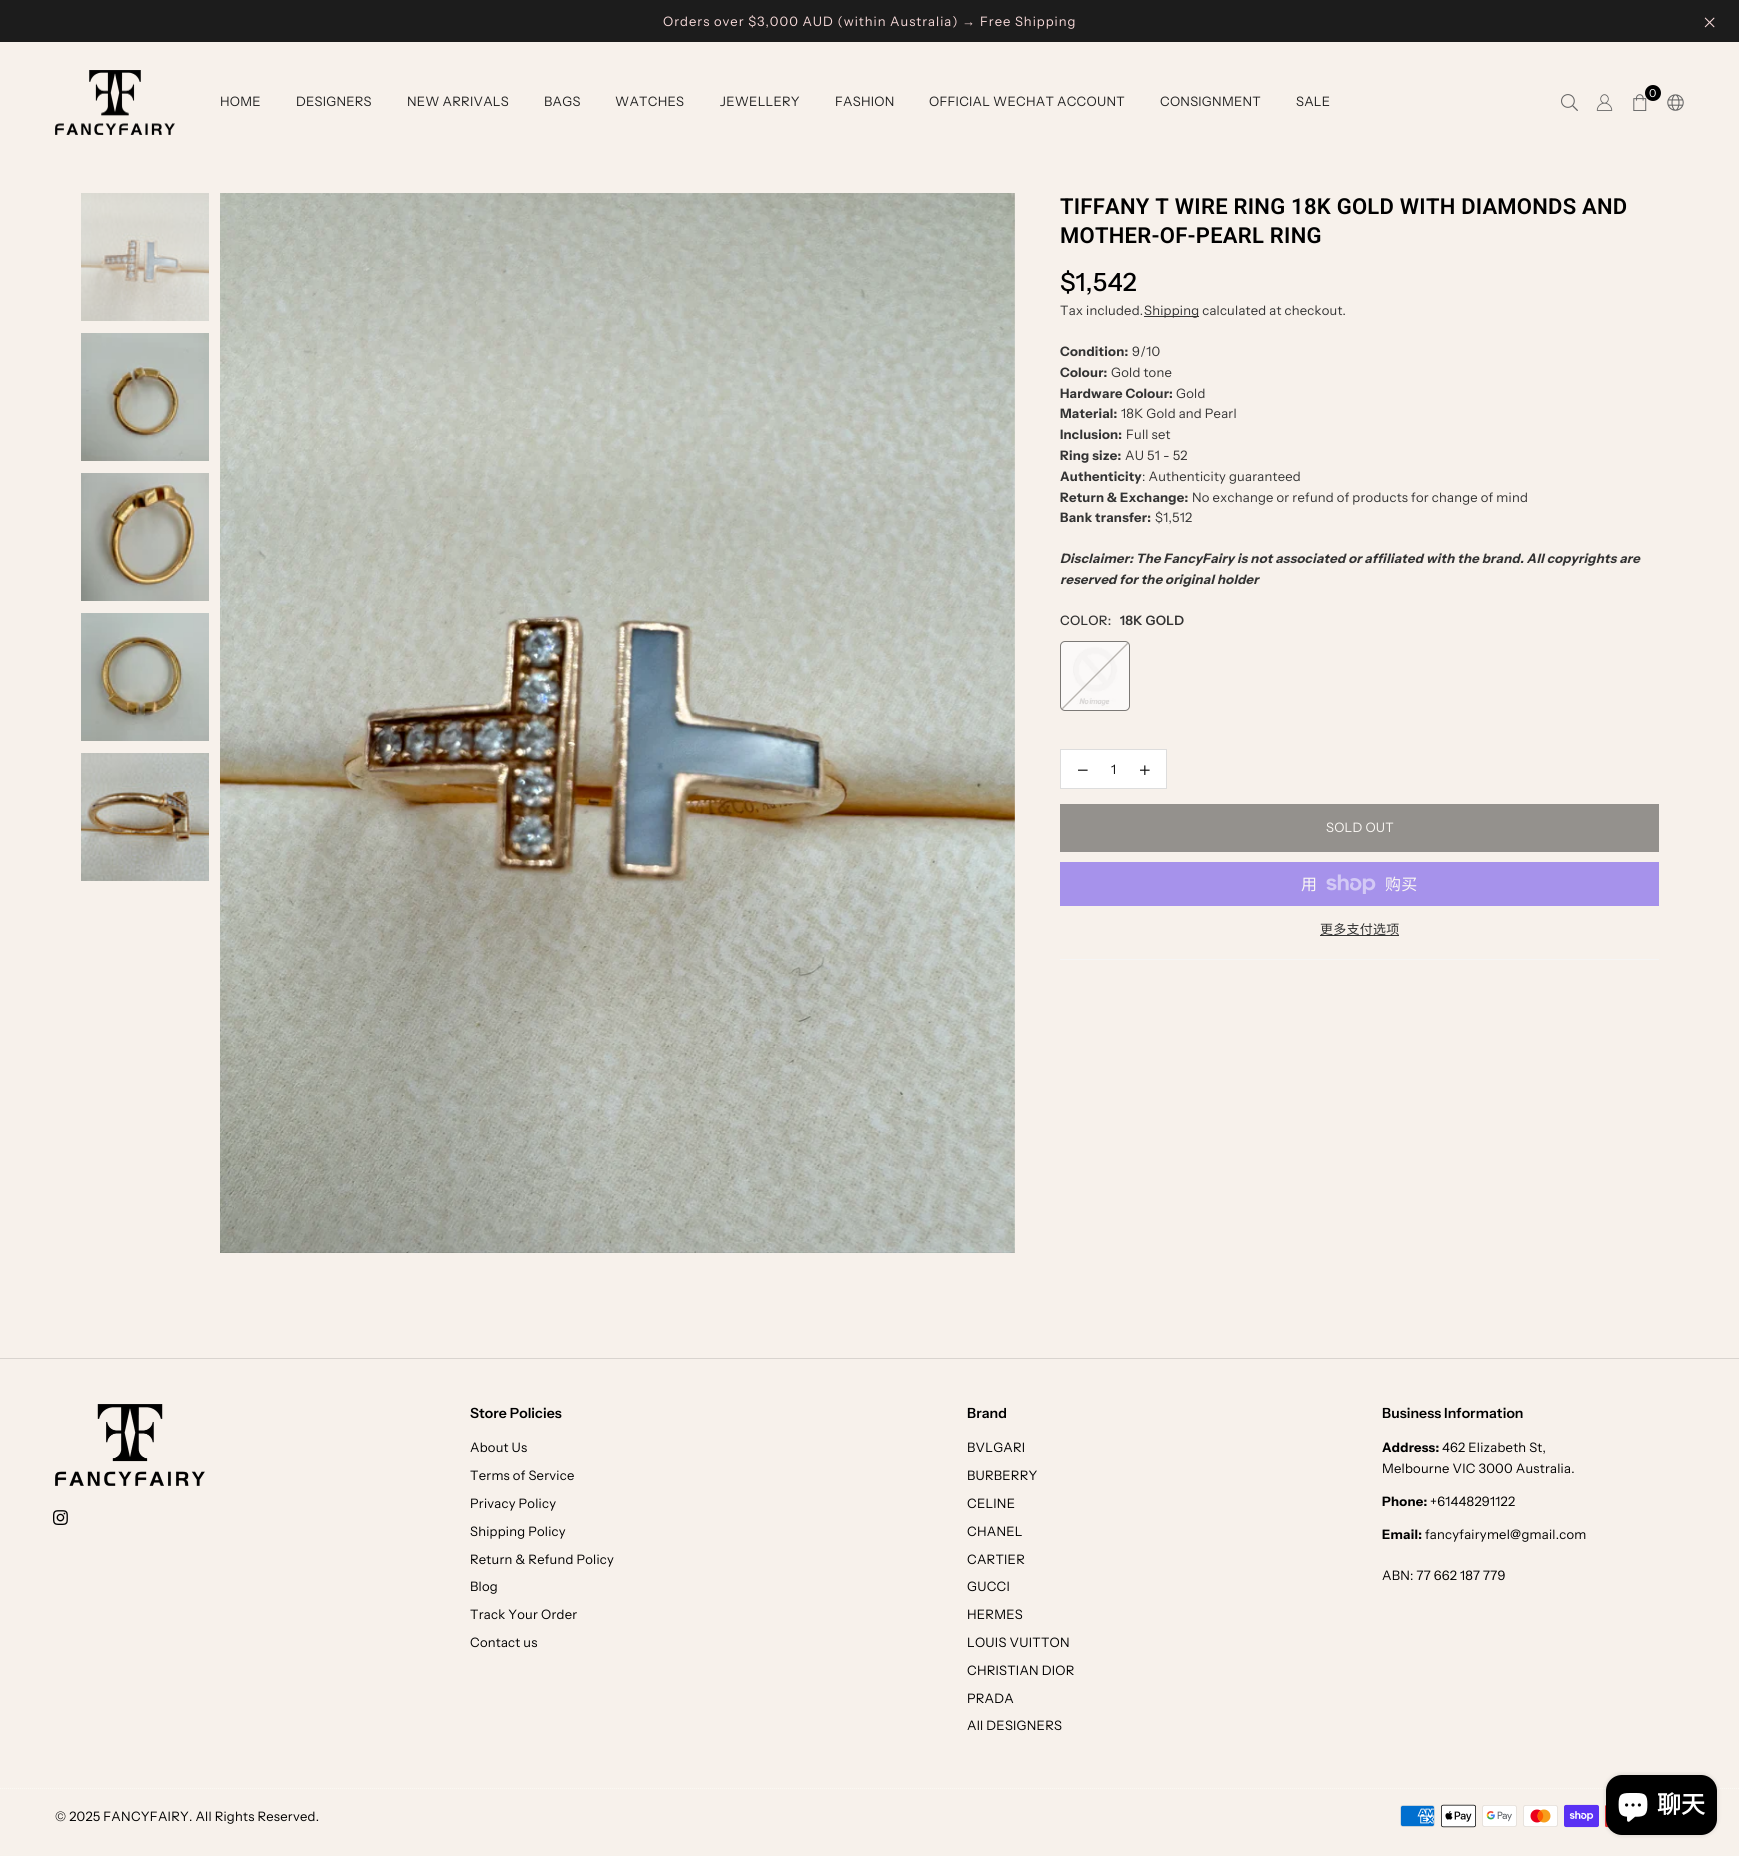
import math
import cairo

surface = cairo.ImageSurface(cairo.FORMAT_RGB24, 1739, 1856)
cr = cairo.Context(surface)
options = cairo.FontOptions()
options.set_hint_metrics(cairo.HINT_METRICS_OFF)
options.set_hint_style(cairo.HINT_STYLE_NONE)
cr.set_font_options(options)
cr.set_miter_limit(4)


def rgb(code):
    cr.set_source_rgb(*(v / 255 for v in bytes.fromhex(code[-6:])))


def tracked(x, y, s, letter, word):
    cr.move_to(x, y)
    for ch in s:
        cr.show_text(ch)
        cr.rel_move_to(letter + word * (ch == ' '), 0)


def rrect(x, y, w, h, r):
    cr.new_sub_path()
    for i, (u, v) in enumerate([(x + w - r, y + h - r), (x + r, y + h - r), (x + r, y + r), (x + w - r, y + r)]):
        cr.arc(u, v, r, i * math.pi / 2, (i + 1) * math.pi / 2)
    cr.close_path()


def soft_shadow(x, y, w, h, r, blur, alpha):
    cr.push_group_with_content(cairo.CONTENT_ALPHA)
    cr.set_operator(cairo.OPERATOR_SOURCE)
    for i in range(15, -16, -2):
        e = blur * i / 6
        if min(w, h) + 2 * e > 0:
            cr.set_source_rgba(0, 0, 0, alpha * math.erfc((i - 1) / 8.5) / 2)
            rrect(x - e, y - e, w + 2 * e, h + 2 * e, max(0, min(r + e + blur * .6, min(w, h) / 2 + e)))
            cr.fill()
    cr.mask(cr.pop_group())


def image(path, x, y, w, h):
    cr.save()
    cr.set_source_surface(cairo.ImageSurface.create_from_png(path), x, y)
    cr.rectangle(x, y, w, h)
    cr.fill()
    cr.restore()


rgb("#f7f1eb")
cr.paint()
rgb("#1c1c1c")
cr.rectangle(0, 0, 1739, 42)
cr.fill()
image("img/1.png", 1704, 17, 11, 11)
image("img/2.png", 55, 70, 120, 65)
image("img/3.png", 1561, 94, 17, 17)
image("img/4.png", 1596, 94, 17, 17)
image("img/5.png", 1633, 94, 14, 17)
rgb("#000000")
cr.arc(1653, 93, 8, 0, 2 * math.pi)
cr.fill()
image("img/6.png", 1667, 94, 17, 17)
image("img/7.png", 81, 193, 128, 128)
image("img/8.png", 81, 333, 128, 128)
image("img/9.png", 81, 473, 128, 128)
image("img/10.png", 81, 613, 128, 128)
image("img/11.png", 81, 753, 128, 128)
image("img/12.png", 220, 193, 795, 1060)
rgb("#333333")
cr.rectangle(1144, 316, 55, 1)
cr.fill()
rgb("#f6f3f0")
rrect(1060, 641, 70, 70, 5)
cr.fill()
image("img/13.png", 1061, 642, 68, 68)
rrect(1060.5, 641.5, 69, 69, 4.5)
rgb("#7c7976")
cr.set_line_width(1)
cr.stroke()
cr.save()
rrect(1061, 642, 68, 68, 4)
cr.clip()
cr.new_path()
cr.move_to(1129, 642)
cr.line_to(1061, 710)
rgb("#b9b5b0")
cr.set_line_width(1.4)
cr.stroke()
cr.restore()
rgb("#ffffff")
cr.rectangle(1060.5, 749.5, 106, 39)
cr.fill_preserve()
rgb("#dddddd")
cr.stroke()
image("img/14.png", 1078, 769, 10, 2)
image("img/15.png", 1140, 765, 10, 10)
rgb("#94918d")
cr.rectangle(1060, 804, 599, 48)
cr.fill()
rgb("#a692eb")
cr.rectangle(1060, 862, 599, 44)
cr.fill()
image("img/16.png", 1326, 874, 50, 20)
for x, y, w, h, color in [
    (1320, 935, 79, 1, "#333333"),
    (1060, 959, 599, 1, "#f5f5f5"),
    (0, 1358, 1739, 1, "#d9d4cf"),
]:
    rgb(color)
    cr.rectangle(x, y, w, h)
    cr.fill()
image("img/17.png", 55, 1404, 150, 82)
image("img/18.png", 53, 1510, 15, 15)
cr.new_path()
cr.move_to(0, 1788.5)
cr.line_to(1739, 1788.5)
rgb("#fafaf4")
cr.set_dash([1, 1])
cr.stroke()
image("img/19.png", 1400, 1805, 35, 22)
image("img/20.png", 1441, 1804, 35, 24)
image("img/21.png", 1482, 1805, 35, 22)
image("img/22.png", 1523, 1805, 35, 22)
image("img/23.png", 1564, 1804, 35, 24)
image("img/24.png", 1605, 1805, 4, 23)
rgb("#000000")
soft_shadow(1606, 1775, 111, 60, 16, 2.5, 0.15)
rgb("#000000")
rrect(1606, 1775, 111, 60, 16)
cr.fill()
image("img/25.png", 1618, 1793, 30, 29)
cr.select_font_face("Instrument Sans")
cr.set_font_size(13)
rgb("#f7d9d9")
tracked(663, 26, "Orders over $3,000 AUD (within Australia)", 1, 0)
cr.select_font_face("Liberation Sans")
tracked(962, 26, "→", 1, 0)
cr.select_font_face("Instrument Sans")
tracked(980, 26, "Free Shipping", 1, 0)
cr.set_font_size(11)
rgb("#ffffff")
tracked(1649, 97, "0", 0.25, 0)
cr.set_font_size(13)
rgb("#222222")
for x, y, s in [
    (220, 106, "HOME"),
    (296, 106, "DESIGNERS"),
    (407, 106, "NEW ARRIVALS"),
    (544, 106, "BAGS"),
    (615, 106, "WATCHES"),
    (720, 106, "JEWELLERY"),
    (835, 106, "FASHION"),
    (929, 106, "OFFICIAL WECHAT ACCOUNT"),
    (1160, 106, "CONSIGNMENT"),
    (1296, 106, "SALE"),
]:
    tracked(x, y, s, 0.25, 0)
cr.select_font_face("Roboto SemiBold")
cr.set_font_size(22)
rgb("#000000")
tracked(1060, 214, "TIFFANY T WIRE RING 18K GOLD WITH DIAMONDS AND", 0.25, 0)
tracked(1060, 243, "MOTHER-OF-PEARL RING", 0.25, 0)
cr.select_font_face("Instrument Sans Medium")
cr.set_font_size(25)
tracked(1060, 291, "$1,542", 0.25, 0)
cr.select_font_face("Instrument Sans")
cr.set_font_size(13)
rgb("#333333")
tracked(1060, 315, "Tax included.", 0.25, 0)
tracked(1144, 315, "Shipping calculated at checkout.", 0.25, 0)
cr.select_font_face("Instrument Sans", cairo.FONT_SLANT_NORMAL, cairo.FONT_WEIGHT_BOLD)
tracked(1060, 356, "Condition:", 0.25, 0)
cr.select_font_face("Instrument Sans")
tracked(1132, 356, "9/10", 0.25, 0)
cr.select_font_face("Instrument Sans", cairo.FONT_SLANT_NORMAL, cairo.FONT_WEIGHT_BOLD)
tracked(1060, 377, "Colour:", 0.25, 0)
cr.select_font_face("Instrument Sans")
tracked(1111, 377, "Gold tone", 0.25, 0)
cr.select_font_face("Instrument Sans", cairo.FONT_SLANT_NORMAL, cairo.FONT_WEIGHT_BOLD)
tracked(1060, 398, "Hardware Colour:", 0.25, 0)
cr.select_font_face("Instrument Sans")
tracked(1176, 398, "Gold", 0.25, 0)
cr.select_font_face("Instrument Sans", cairo.FONT_SLANT_NORMAL, cairo.FONT_WEIGHT_BOLD)
tracked(1060, 418, "Material:", 0.25, 0)
cr.select_font_face("Instrument Sans")
tracked(1121, 418, "18K Gold and Pearl", 0.25, 0)
cr.select_font_face("Instrument Sans", cairo.FONT_SLANT_NORMAL, cairo.FONT_WEIGHT_BOLD)
tracked(1060, 439, "Inclusion:", 0.25, 0)
cr.select_font_face("Instrument Sans")
tracked(1126, 439, "Full set", 0.25, 0)
cr.select_font_face("Instrument Sans", cairo.FONT_SLANT_NORMAL, cairo.FONT_WEIGHT_BOLD)
tracked(1060, 460, "Ring size:", 0.25, 0)
cr.select_font_face("Instrument Sans")
tracked(1125, 460, "AU 51 - 52", 0.25, 0)
cr.select_font_face("Instrument Sans", cairo.FONT_SLANT_NORMAL, cairo.FONT_WEIGHT_BOLD)
tracked(1060, 481, "Authenticity", 0.25, 0)
cr.select_font_face("Instrument Sans")
tracked(1142, 481, ": Authenticity guaranteed", 0.25, 0)
cr.select_font_face("Instrument Sans", cairo.FONT_SLANT_NORMAL, cairo.FONT_WEIGHT_BOLD)
tracked(1060, 502, "Return & Exchange:", 0.25, 0)
cr.select_font_face("Instrument Sans")
tracked(1192, 502, "No exchange or refund of products for change of mind", 0.25, 0)
cr.select_font_face("Instrument Sans", cairo.FONT_SLANT_NORMAL, cairo.FONT_WEIGHT_BOLD)
tracked(1060, 522, "Bank transfer:", 0.25, 0)
cr.select_font_face("Instrument Sans")
tracked(1155, 522, "$1,512", 0.25, 0)
cr.select_font_face("Instrument Sans", cairo.FONT_SLANT_ITALIC, cairo.FONT_WEIGHT_BOLD)
tracked(1060, 563, "Disclaimer: The FancyFairy is not associated or affiliated with the brand. All copyrights are", 0.25, 0)
tracked(1060, 584, "reserved for the original holder", 0.25, 0)
cr.select_font_face("Instrument Sans Medium")
tracked(1060, 625, "COLOR:", 0.25, 0)
cr.select_font_face("Instrument Sans SemiBold")
tracked(1120, 625, "18K GOLD", 0.25, 0)
cr.select_font_face("Instrument Sans")
rgb("#111111")
cr.move_to(1111, 774)
cr.show_text("1")
rgb("#faf7f3")
tracked(1326, 832, "SOLD OUT", 0.25, 0)
cr.select_font_face("Noto Sans CJK SC")
cr.set_font_size(16)
tracked(1301, 890, "用", 0.25, 0)
tracked(1385, 890, "购买", 0.25, 0)
cr.set_font_size(13)
rgb("#333333")
tracked(1320, 934, "更多支付选项", 0.25, 0)
cr.select_font_face("Instrument Sans SemiBold")
cr.set_font_size(14)
rgb("#000000")
tracked(470, 1418, "Store Policies", 0.1, 0)
cr.select_font_face("Instrument Sans")
cr.set_font_size(13)
for x, y, s in [
    (470, 1452, "About Us"),
    (470, 1480, "Terms of Service"),
    (470, 1508, "Privacy Policy"),
    (470, 1536, "Shipping Policy"),
    (470, 1564, "Return & Refund Policy"),
    (470, 1591, "Blog"),
    (470, 1619, "Track Your Order"),
    (470, 1647, "Contact us"),
]:
    tracked(x, y, s, 0.25, 0)
cr.select_font_face("Instrument Sans SemiBold")
cr.set_font_size(14)
tracked(967, 1418, "Brand", 0.1, 0)
cr.select_font_face("Instrument Sans")
cr.set_font_size(13)
for x, y, s in [
    (967, 1452, "BVLGARI"),
    (967, 1480, "BURBERRY"),
    (967, 1508, "CELINE"),
    (967, 1536, "CHANEL"),
    (967, 1564, "CARTIER"),
    (967, 1591, "GUCCI"),
    (967, 1619, "HERMES"),
    (967, 1647, "LOUIS VUITTON"),
    (967, 1675, "CHRISTIAN DIOR"),
    (967, 1703, "PRADA"),
    (967, 1730, "All DESIGNERS"),
]:
    tracked(x, y, s, 0.25, 0)
cr.select_font_face("Instrument Sans SemiBold")
cr.set_font_size(14)
tracked(1382, 1418, "Business Information", 0.1, 0)
cr.select_font_face("Instrument Sans", cairo.FONT_SLANT_NORMAL, cairo.FONT_WEIGHT_BOLD)
cr.set_font_size(13)
tracked(1382, 1452, "Address:", 0.25, 0)
cr.select_font_face("Instrument Sans")
tracked(1442, 1452, "462 Elizabeth St,", 0.25, 0)
tracked(1382, 1473, "Melbourne VIC 3000 Australia.", 0.25, 0)
cr.select_font_face("Instrument Sans", cairo.FONT_SLANT_NORMAL, cairo.FONT_WEIGHT_BOLD)
tracked(1382, 1506, "Phone:", 0.25, 0)
cr.select_font_face("Instrument Sans")
tracked(1430, 1506, "+61448291122", 0.25, 0)
cr.select_font_face("Instrument Sans", cairo.FONT_SLANT_NORMAL, cairo.FONT_WEIGHT_BOLD)
tracked(1382, 1539, "Email:", 0.25, 0)
cr.select_font_face("Instrument Sans")
for x, y, s in [
    (1425, 1539, "fancyfairymel@gmail.com"),
    (1382, 1580, "ABN: 77 662 187 779"),
    (55, 1821, "© 2025 FANCYFAIRY. All Rights Reserved."),
]:
    tracked(x, y, s, 0.25, 0)
cr.select_font_face("Noto Sans CJK SC", cairo.FONT_SLANT_NORMAL, cairo.FONT_WEIGHT_BOLD)
cr.set_font_size(24)
rgb("#ffffff")
cr.move_to(1657, 1813)
cr.show_text("聊天")
surface.write_to_png("page.png")
